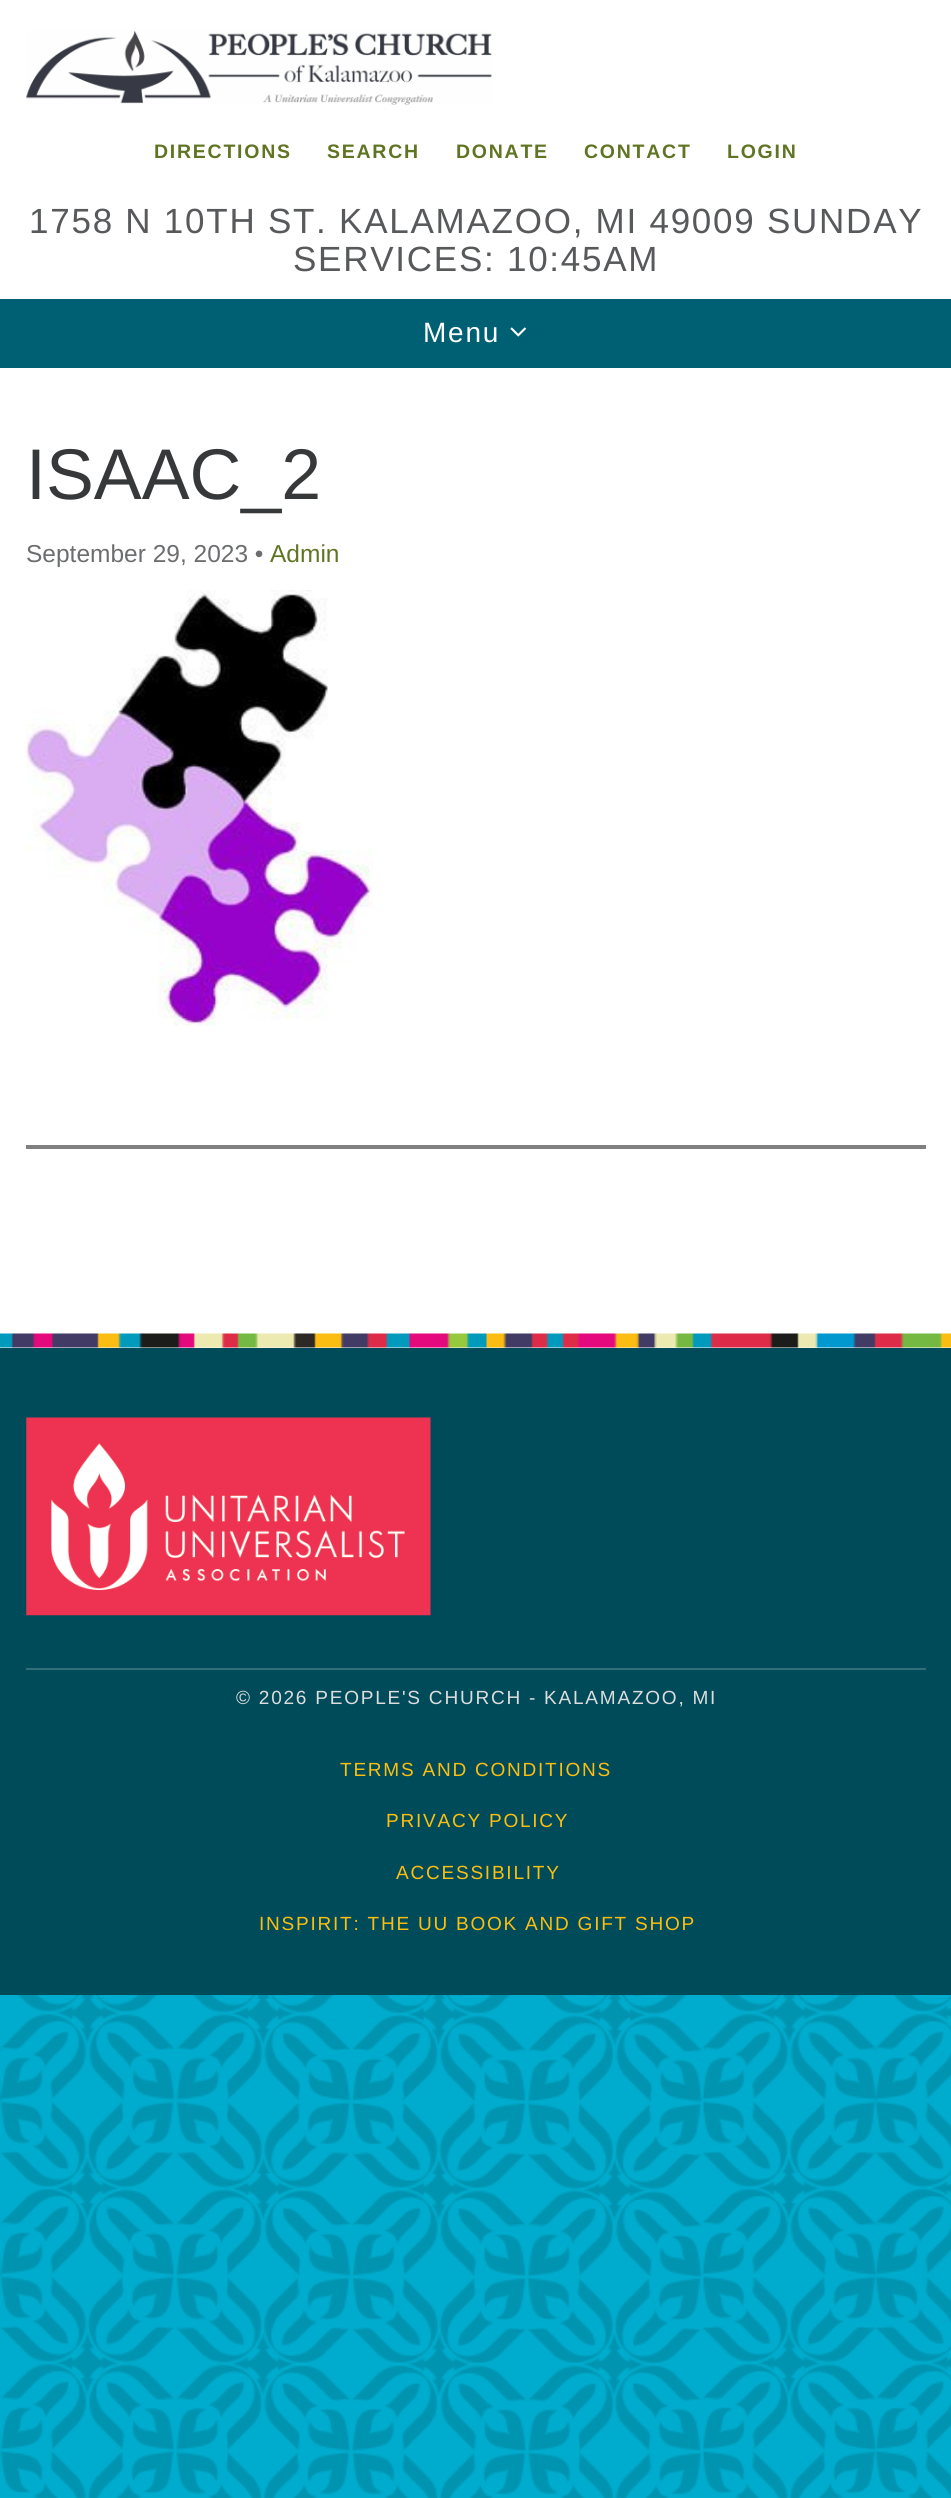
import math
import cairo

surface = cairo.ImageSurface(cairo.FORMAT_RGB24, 951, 2498)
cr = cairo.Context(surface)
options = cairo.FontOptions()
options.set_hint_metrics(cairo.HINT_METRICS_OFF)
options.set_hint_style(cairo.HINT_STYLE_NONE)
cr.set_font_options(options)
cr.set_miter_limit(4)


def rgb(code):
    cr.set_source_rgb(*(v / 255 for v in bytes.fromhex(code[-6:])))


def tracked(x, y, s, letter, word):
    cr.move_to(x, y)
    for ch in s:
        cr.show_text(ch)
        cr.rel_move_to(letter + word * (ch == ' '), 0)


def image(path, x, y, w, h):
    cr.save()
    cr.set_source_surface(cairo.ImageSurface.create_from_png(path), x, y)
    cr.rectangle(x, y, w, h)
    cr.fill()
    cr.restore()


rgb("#ffffff")
cr.paint()
image("img/1.png", 0, 1995, 951, 503)
image("img/2.png", 26, 30, 466, 75)
rgb("#006073")
cr.rectangle(0, 299, 951, 69)
cr.fill()
image("img/3.png", 510, 327, 16, 10)
image("img/4.png", 26, 590, 347, 436)
rgb("#808080")
cr.rectangle(26, 1145, 900, 4)
cr.fill()
rgb("#004b5a")
cr.rectangle(0, 1348, 951, 647)
cr.fill()
image("img/5.png", 0, 1333, 951, 15)
image("img/6.png", 26, 1417, 405, 199)
rgb("#336f7b")
cr.rectangle(26, 1668, 900, 2)
cr.fill()
cr.select_font_face("Liberation Sans", cairo.FONT_SLANT_NORMAL, cairo.FONT_WEIGHT_BOLD)
cr.set_font_size(19.5)
rgb("#607523")
for x, y, s in [
    (154, 158, "DIRECTIONS"),
    (327, 158, "SEARCH"),
    (456, 158, "DONATE"),
    (584, 158, "CONTACT"),
    (727, 158, "LOGIN"),
]:
    tracked(x, y, s, 1.75, 0)
cr.select_font_face("Liberation Sans")
cr.set_font_size(35)
rgb("#58595b")
tracked(29, 233, "1758 N 10TH ST. KALAMAZOO, MI 49009 SUNDAY", 1.75, 0)
tracked(293, 271, "SERVICES: 10:45AM", 1.75, 0)
cr.set_font_size(28)
rgb("#ffffff")
tracked(423, 342, "Menu", 1.75, 0)
cr.set_font_size(71.75)
rgb("#373839")
cr.move_to(26, 499)
cr.show_text("ISAAC_2")
cr.set_font_size(24.5)
rgb("#6c6d6f")
cr.move_to(26, 562)
cr.show_text("September 29, 2023 •")
rgb("#607523")
cr.move_to(270, 562)
cr.show_text("Admin")
cr.set_font_size(19.05)
rgb("#dddddd")
tracked(236, 1704, "© 2026 PEOPLE'S CHURCH - KALAMAZOO, MI", 1.75, 0)
rgb("#febe10")
for x, y, s in [
    (340, 1776, "TERMS AND CONDITIONS"),
    (386, 1827, "PRIVACY POLICY"),
    (396, 1879, "ACCESSIBILITY"),
    (259, 1930, "INSPIRIT: THE UU BOOK AND GIFT SHOP"),
]:
    tracked(x, y, s, 1.75, 0)
surface.write_to_png("page.png")
